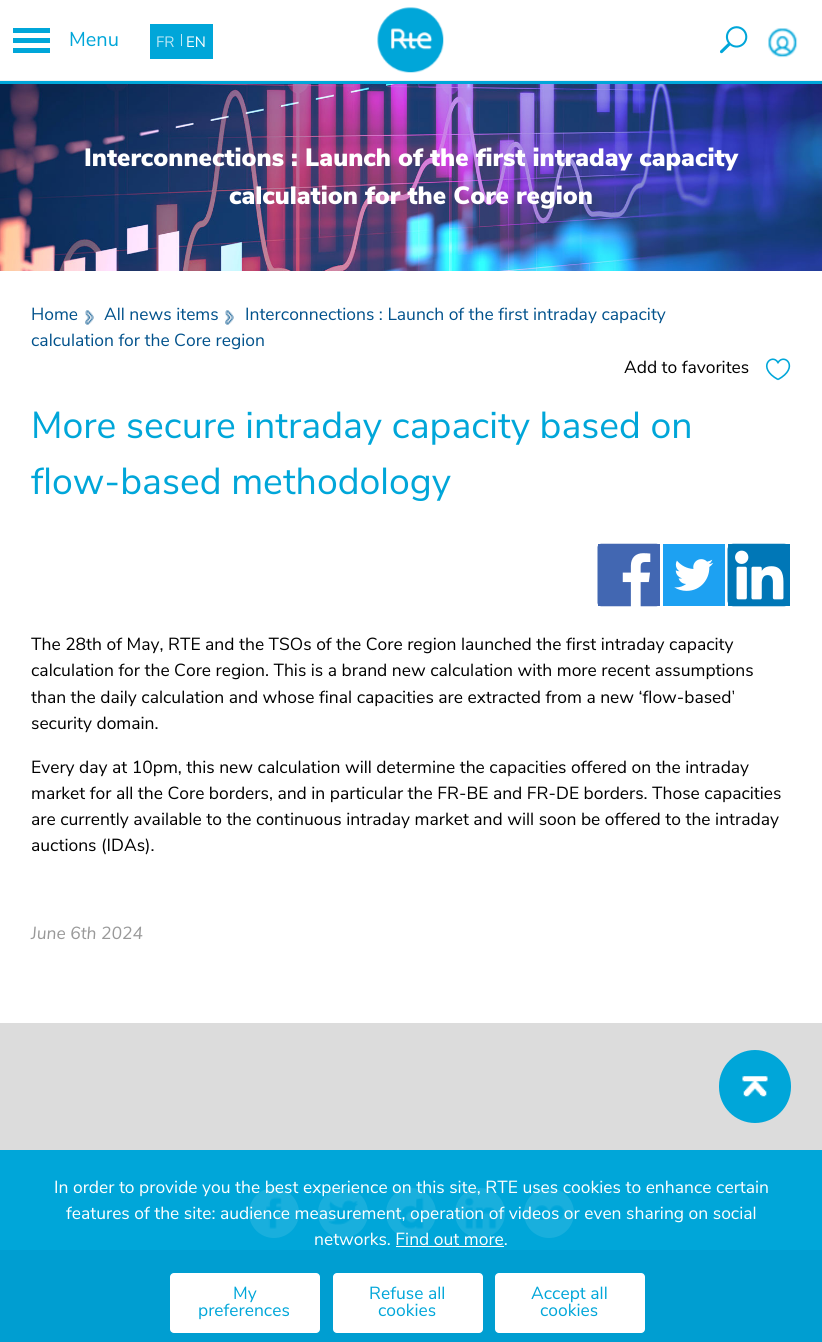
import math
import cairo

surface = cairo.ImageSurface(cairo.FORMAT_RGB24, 822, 1342)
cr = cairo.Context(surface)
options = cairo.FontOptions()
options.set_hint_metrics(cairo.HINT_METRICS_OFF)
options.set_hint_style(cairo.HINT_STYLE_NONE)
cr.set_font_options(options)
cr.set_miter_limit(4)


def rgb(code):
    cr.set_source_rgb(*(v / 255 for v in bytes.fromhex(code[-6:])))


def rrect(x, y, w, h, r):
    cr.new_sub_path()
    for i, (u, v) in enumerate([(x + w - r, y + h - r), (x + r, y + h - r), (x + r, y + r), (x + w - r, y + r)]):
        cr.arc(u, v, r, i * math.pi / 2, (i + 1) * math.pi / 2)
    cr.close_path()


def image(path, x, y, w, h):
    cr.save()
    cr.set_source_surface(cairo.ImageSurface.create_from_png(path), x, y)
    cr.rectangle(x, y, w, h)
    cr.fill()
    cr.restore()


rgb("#dcdcdc")
cr.paint()
for x, y, w, h, color in [
    (0, 0, 822, 80, "#ffffff"),
    (13, 28, 37, 5, "#00a6d9"),
    (13, 38, 37, 5, "#00a6d9"),
    (13, 48, 37, 5, "#00a6d9"),
    (0, 81, 822, 3, "#00a6d9"),
    (150, 24, 63, 35, "#00a6d9"),
    (181, 34, 1, 12, "#bfe9f6"),
]:
    rgb(color)
    cr.rectangle(x, y, w, h)
    cr.fill()
image("img/1.png", 720, 26, 28, 28)
image("img/2.png", 768, 28, 30, 30)
image("img/3.png", 377, 7, 67, 66)
rgb("#f2f2f2")
cr.rectangle(0, 80, 822, 1)
cr.fill()
image("img/4.png", 0, 84, 822, 187)
rgb("#ffffff")
cr.rectangle(0, 271, 822, 752)
cr.fill()
image("img/5.png", 85, 310, 9, 15)
image("img/5.png", 225, 310, 9, 15)
cr.new_path()
cr.move_to(778, 379.5)
cr.curve_to(756, 367.5, 772, 352.5, 778, 362.5)
cr.curve_to(784.5, 352.5, 800, 367.5, 778, 379.5)
rgb("#00a6d9")
cr.set_line_width(1.6)
cr.stroke()
rgb("#4267b2")
cr.rectangle(598, 544, 62, 62)
cr.fill()
image("img/6.png", 597, 543, 61, 64)
rgb("#1da1f2")
cr.rectangle(663, 544, 62, 62)
cr.fill()
image("img/7.png", 674, 559, 40, 32)
rgb("#0077b7")
cr.rectangle(728, 544, 62, 62)
cr.fill()
rgb("#ffffff")
rrect(728, 544, 62, 62, 8)
cr.fill()
image("img/8.png", 727, 543, 63, 64)
rgb("#00a6d9")
rrect(719, 1050, 72, 73, 36)
cr.fill()
image("img/9.png", 742, 1076, 26, 21)
cr.rectangle(0, 1150, 822, 100)
cr.fill()
rgb("#19afdd")
cr.arc(274, 1213, 25, 0, 2 * math.pi)
cr.fill()
image("img/10.png", 266, 1197, 16, 32)
cr.arc(343, 1213, 25, 0, 2 * math.pi)
cr.fill()
image("img/11.png", 328, 1200, 31, 25)
cr.arc(411, 1213, 25, 0, 2 * math.pi)
cr.fill()
image("img/12.png", 398, 1197, 26, 32)
cr.arc(480, 1213, 25, 0, 2 * math.pi)
cr.fill()
image("img/13.png", 465, 1197, 32, 32)
cr.arc(549, 1213, 25, 0, 2 * math.pi)
cr.fill()
image("img/14.png", 533, 1205, 32, 15)
rgb("#009ed1")
cr.rectangle(0, 1250, 822, 92)
cr.fill()
rgb("#ffffff")
cr.rectangle(396, 1246, 108, 1)
cr.fill()
rrect(170, 1273, 150, 60, 4)
cr.fill()
rrect(333, 1273, 150, 60, 4)
cr.fill()
rrect(495, 1273, 150, 60, 4)
cr.fill()
cr.select_font_face("Nunito Sans")
cr.set_font_size(20)
rgb("#00a6d9")
cr.move_to(69, 46)
cr.show_text("Menu")
cr.set_font_size(15)
rgb("#bfe9f6")
cr.move_to(156, 47)
cr.show_text("FR")
rgb("#ffffff")
cr.move_to(186, 47)
cr.show_text("EN")
cr.select_font_face("Nunito Sans Black")
cr.set_font_size(25)
cr.move_to(84, 166)
cr.show_text("Interconnections : Launch of the first intraday capacity")
cr.move_to(229, 204)
cr.show_text("calculation for the Core region")
cr.select_font_face("Nunito Sans")
cr.set_font_size(17.5)
rgb("#00518b")
for x, y, s in [
    (31, 320, "Home"),
    (104, 320, "All news items"),
    (245, 320, "Interconnections : Launch of the first intraday capacity"),
    (31, 346, "calculation for the Core region"),
]:
    cr.move_to(x, y)
    cr.show_text(s)
rgb("#000000")
cr.move_to(624, 373)
cr.show_text("Add to favorites")
cr.set_font_size(37.5)
rgb("#00a6d9")
cr.move_to(31, 438)
cr.show_text("More secure intraday capacity based on")
cr.move_to(31, 494)
cr.show_text("flow-based methodology")
cr.set_font_size(17.5)
rgb("#000000")
for x, y, s in [
    (31, 650, "The 28th of May, RTE and the TSOs of the Core region launched the first intraday capacity"),
    (31, 676, "calculation for the Core region. This is a brand new calculation with more recent assumptions"),
    (31, 703, "than the daily calculation and whose final capacities are extracted from a new ‘flow-based’"),
    (31, 729, "security domain."),
    (31, 773, "Every day at 10pm, this new calculation will determine the capacities offered on the intraday"),
    (31, 799, "market for all the Core borders, and in particular the FR-BE and FR-DE borders. Those capacities"),
    (31, 825, "are currently available to the continuous intraday market and will soon be offered to the intraday"),
    (31, 851, "auctions (IDAs)."),
]:
    cr.move_to(x, y)
    cr.show_text(s)
cr.select_font_face("Nunito Sans", cairo.FONT_SLANT_ITALIC)
rgb("#999999")
cr.move_to(31, 939)
cr.show_text("June 6th 2024")
cr.select_font_face("Nunito Sans")
rgb("#ffffff")
for x, y, s in [
    (54, 1193, "In order to provide you the best experience on this site, RTE uses cookies to enhance certain"),
    (66, 1219, "features of the site: audience measurement, operation of videos or even sharing on social"),
    (314, 1245, "networks. Find out more."),
]:
    cr.move_to(x, y)
    cr.show_text(s)
rgb("#00a6d9")
for x, y, s in [
    (233, 1299, "My"),
    (198, 1316, "preferences"),
    (369, 1299, "Refuse all"),
    (378, 1316, "cookies"),
    (531, 1299, "Accept all"),
    (540, 1316, "cookies"),
]:
    cr.move_to(x, y)
    cr.show_text(s)
surface.write_to_png("page.png")
